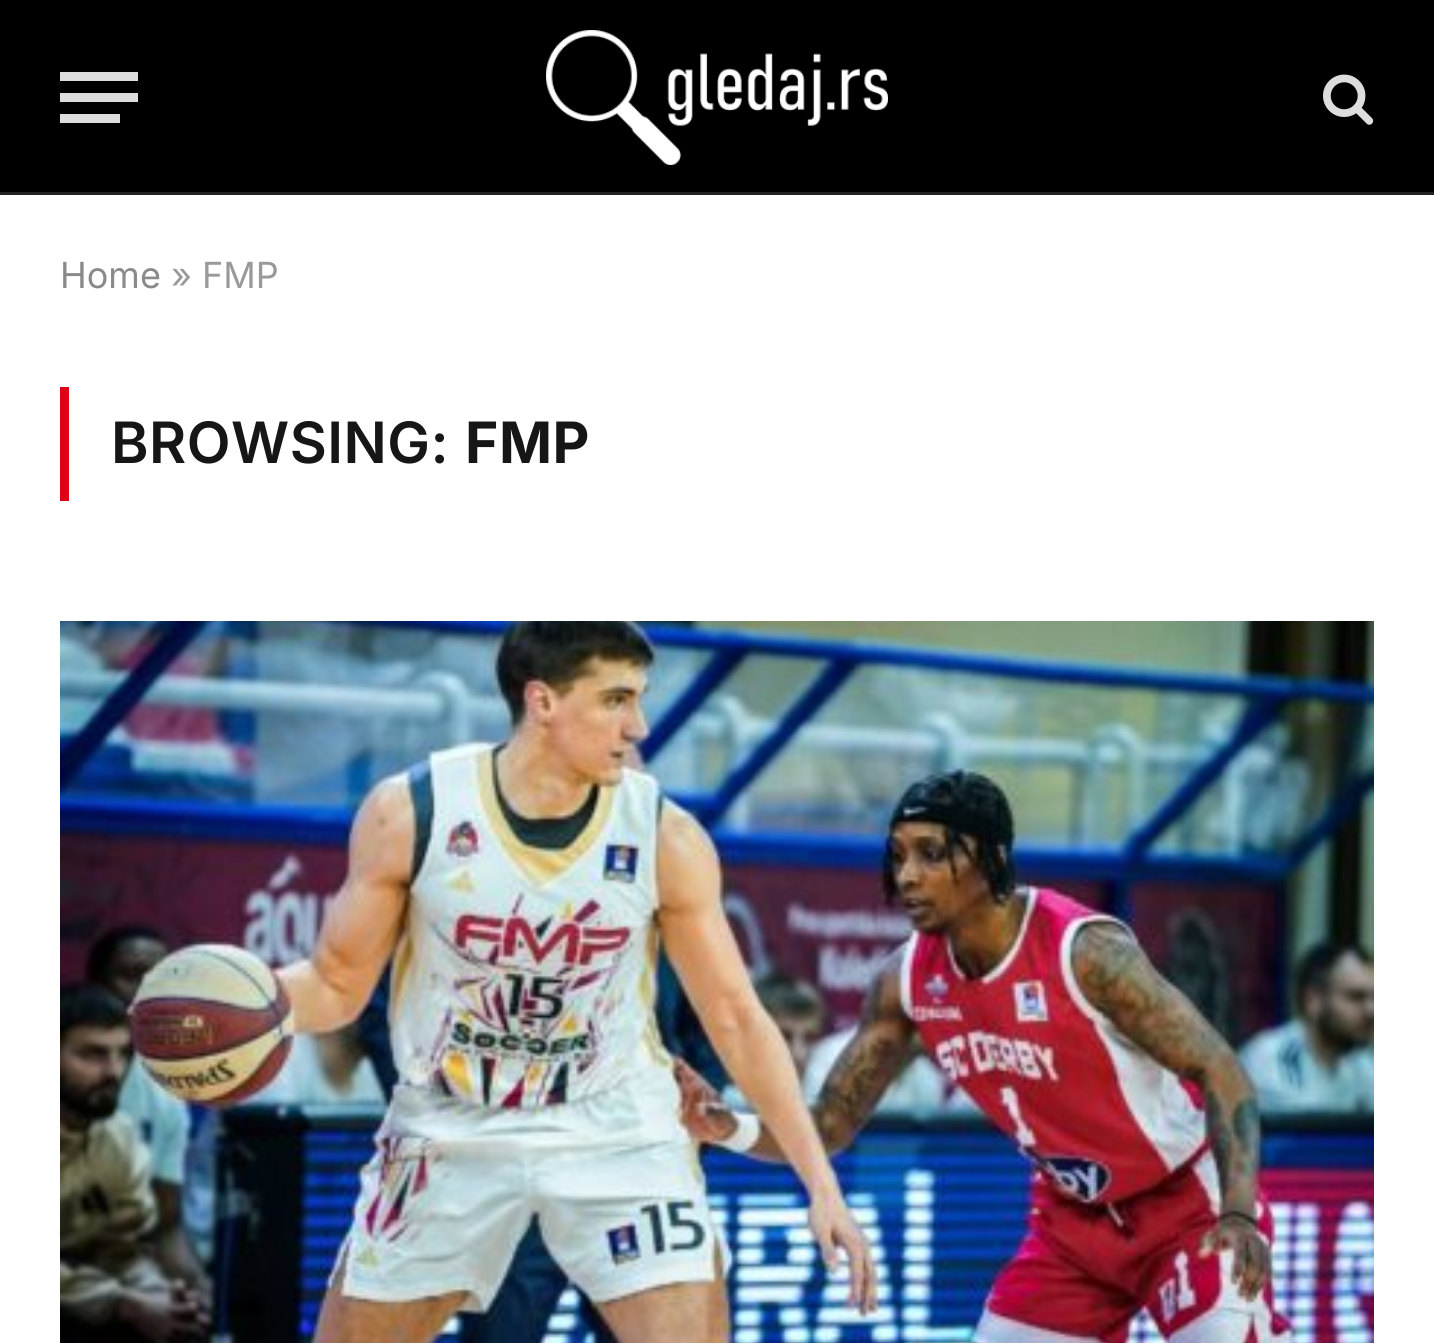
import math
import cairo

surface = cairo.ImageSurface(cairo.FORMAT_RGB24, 1434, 1343)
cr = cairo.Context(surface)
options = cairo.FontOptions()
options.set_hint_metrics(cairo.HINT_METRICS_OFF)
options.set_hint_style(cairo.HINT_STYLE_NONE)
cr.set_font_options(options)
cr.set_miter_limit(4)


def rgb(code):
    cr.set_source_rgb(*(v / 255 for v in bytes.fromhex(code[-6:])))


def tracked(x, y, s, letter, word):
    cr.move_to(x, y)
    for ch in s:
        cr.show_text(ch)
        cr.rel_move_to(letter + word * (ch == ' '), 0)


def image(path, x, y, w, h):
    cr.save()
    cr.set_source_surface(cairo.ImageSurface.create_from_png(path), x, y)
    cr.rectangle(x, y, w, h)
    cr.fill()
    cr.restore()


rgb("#ffffff")
cr.paint()
for x, y, w, h, color in [
    (0, 0, 1434, 192, "#000000"),
    (0, 192, 1434, 3, "#222222"),
    (60, 114, 60, 9, "#dddddd"),
    (60, 72, 78, 9, "#dddddd"),
    (60, 93, 78, 9, "#dddddd"),
]:
    rgb(color)
    cr.rectangle(x, y, w, h)
    cr.fill()
image("img/1.png", 546, 30, 342, 135)
image("img/2.png", 1323, 74, 51, 51)
rgb("#dd0017")
cr.rectangle(60, 387, 9, 114)
cr.fill()
image("img/3.png", 60, 621, 1314, 722)
cr.select_font_face("Inter")
cr.set_font_size(36)
rgb("#8a8a8a")
cr.move_to(60, 288)
cr.show_text("Home")
rgb("#999999")
cr.move_to(171, 288)
cr.show_text("» FMP")
cr.select_font_face("Inter SemiBold")
cr.set_font_size(57)
rgb("#161616")
tracked(111, 463, "BROWSING:", 0.5, 0)
cr.select_font_face("Inter", cairo.FONT_SLANT_NORMAL, cairo.FONT_WEIGHT_BOLD)
tracked(465, 463, "FMP", 0.5, 0)
surface.write_to_png("page.png")
